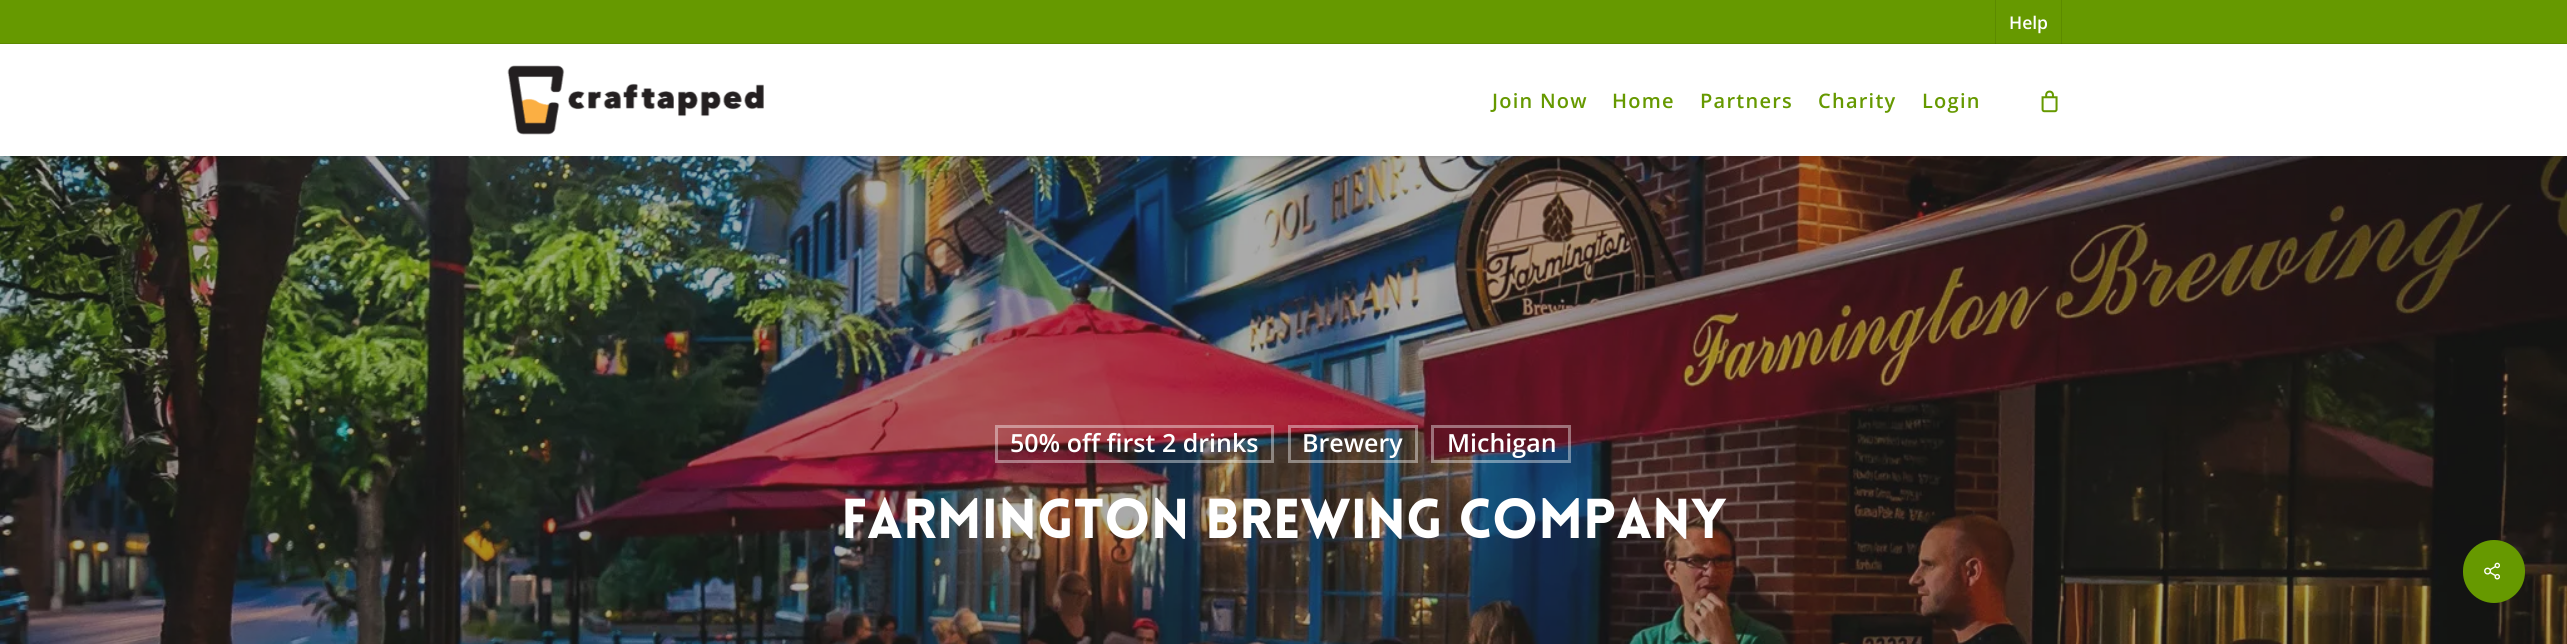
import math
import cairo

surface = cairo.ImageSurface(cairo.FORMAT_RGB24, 2567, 644)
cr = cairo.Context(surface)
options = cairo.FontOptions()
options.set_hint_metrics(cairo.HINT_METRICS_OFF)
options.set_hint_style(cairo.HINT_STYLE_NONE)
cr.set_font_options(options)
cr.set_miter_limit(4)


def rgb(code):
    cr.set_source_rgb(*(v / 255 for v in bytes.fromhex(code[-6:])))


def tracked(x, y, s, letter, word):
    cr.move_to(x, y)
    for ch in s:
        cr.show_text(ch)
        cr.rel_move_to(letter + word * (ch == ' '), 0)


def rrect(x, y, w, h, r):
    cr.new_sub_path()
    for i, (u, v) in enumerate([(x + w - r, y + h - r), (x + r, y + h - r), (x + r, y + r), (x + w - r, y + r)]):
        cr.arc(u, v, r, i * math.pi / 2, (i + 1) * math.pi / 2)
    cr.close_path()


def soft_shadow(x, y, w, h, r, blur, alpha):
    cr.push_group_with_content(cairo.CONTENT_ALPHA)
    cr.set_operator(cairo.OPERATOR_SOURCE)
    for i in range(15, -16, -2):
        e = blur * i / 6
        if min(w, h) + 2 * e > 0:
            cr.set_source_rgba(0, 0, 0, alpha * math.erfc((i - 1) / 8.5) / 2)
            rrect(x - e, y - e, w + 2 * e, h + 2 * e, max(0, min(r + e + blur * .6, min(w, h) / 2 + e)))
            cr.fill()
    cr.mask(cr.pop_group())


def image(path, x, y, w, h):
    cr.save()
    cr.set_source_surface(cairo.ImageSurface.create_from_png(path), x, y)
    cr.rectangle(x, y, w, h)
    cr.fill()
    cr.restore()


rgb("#ffffff")
cr.paint()
image("img/3.png", 0, 156, 2567, 488)
rgb("#000000")
soft_shadow(0, 0, 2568, 156, 0, 2, 0.22)
for x, y, w, h, color in [
    (0, 44, 2567, 112, "#ffffff"),
    (0, 0, 2567, 43, "#669900"),
    (1995, 0, 1, 44, "#5c8a00"),
    (2061, 0, 1, 44, "#5c8a00"),
    (0, 43, 2567, 1, "#5c8a00"),
    (1995, 43, 1, 1, "#537c00"),
    (2061, 43, 1, 1, "#537c00"),
]:
    rgb(color)
    cr.rectangle(x, y, w, h)
    cr.fill()
image("img/1.png", 507, 65, 257, 70)
image("img/2.png", 2041, 90, 17, 23)
cr.rectangle(996.5, 426.5, 276, 35)
cr.set_source_rgba(1, 1, 1, 0.4)
cr.set_line_width(3)
cr.stroke()
cr.rectangle(1289.5, 426.5, 127, 35)
cr.stroke()
cr.rectangle(1432.5, 426.5, 137, 35)
cr.stroke()
rgb("#669900")
rrect(2463, 540, 62, 63, 31)
cr.fill()
image("img/4.png", 2484, 562, 16, 18)
cr.select_font_face("Open Sans SemiBold")
cr.set_font_size(17.5)
rgb("#ffffff")
cr.move_to(2009, 29)
cr.show_text("Help")
cr.set_font_size(20)
rgb("#669900")
for x, y, s in [
    (1492, 108, "Join Now"),
    (1612, 108, "Home"),
    (1700, 108, "Partners"),
    (1818, 108, "Charity"),
    (1922, 108, "Login"),
]:
    tracked(x, y, s, 1.25, 0)
cr.set_font_size(25)
rgb("#ffffff")
for x, y, s in [
    (1010, 452, "50% off first 2 drinks"),
    (1302, 452, "Brewery"),
    (1447, 452, "Michigan"),
]:
    cr.move_to(x, y)
    cr.show_text(s)
cr.select_font_face("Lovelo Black")
cr.set_font_size(55)
cr.move_to(841, 538)
cr.show_text("Farmington Brewing Company")
surface.write_to_png("page.png")
